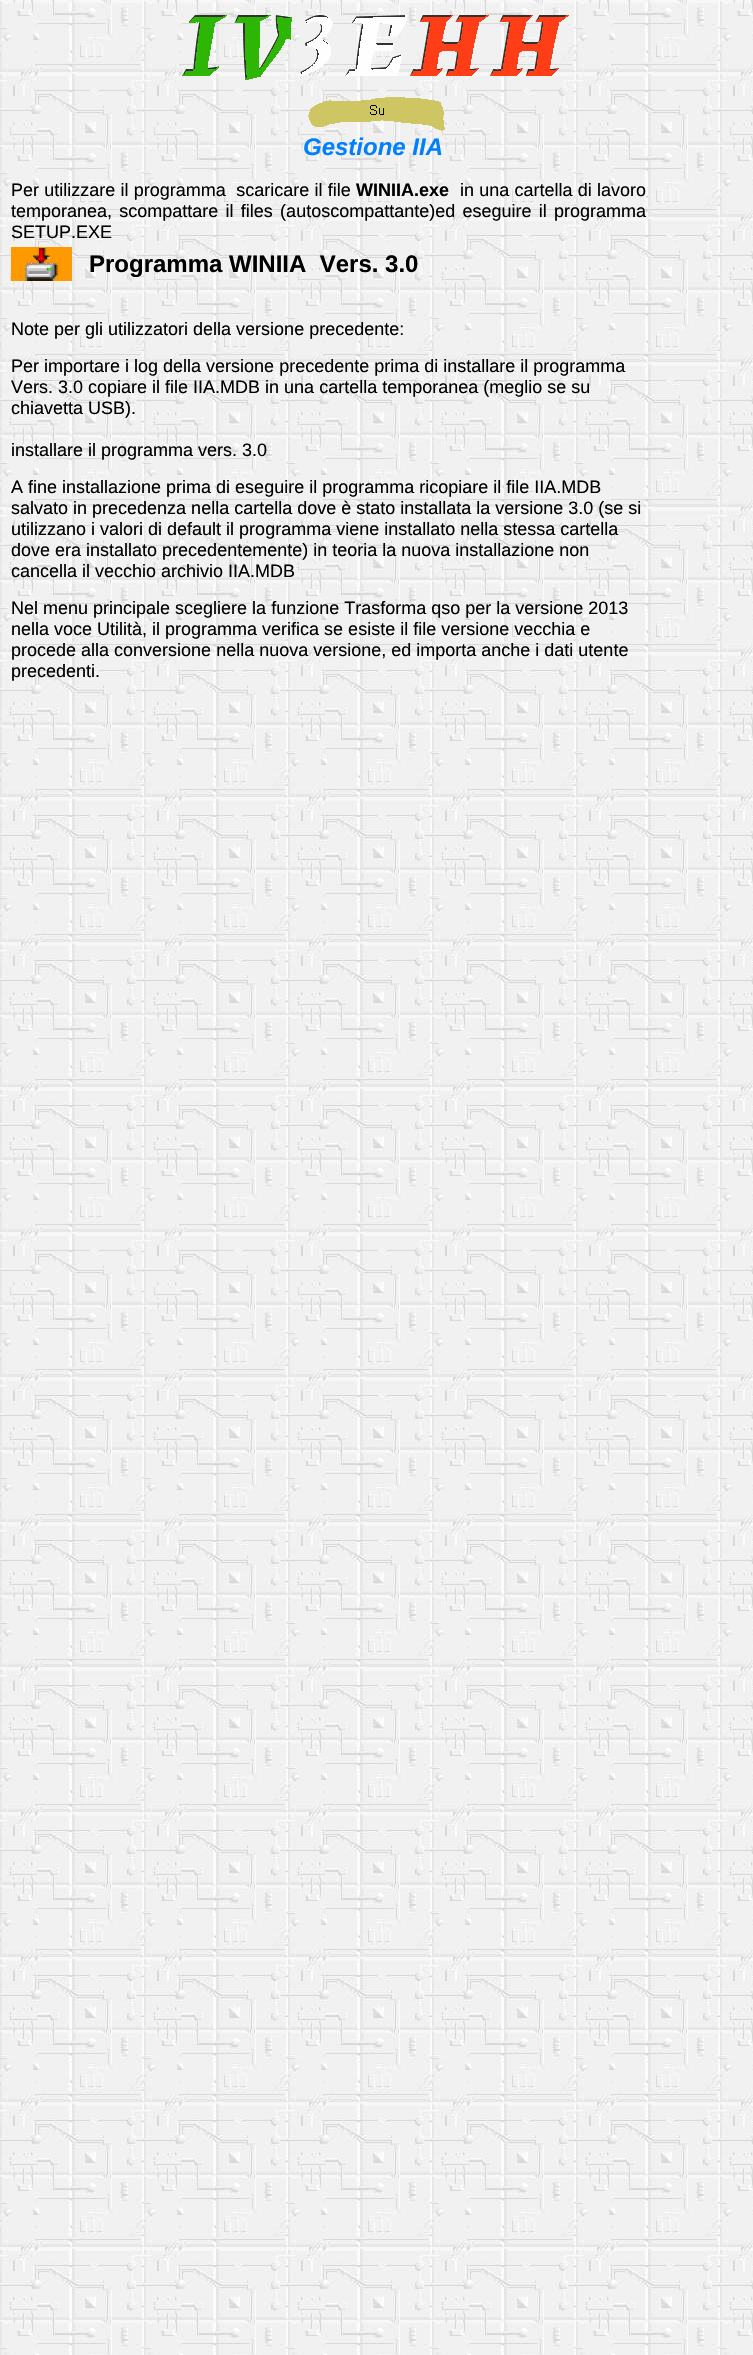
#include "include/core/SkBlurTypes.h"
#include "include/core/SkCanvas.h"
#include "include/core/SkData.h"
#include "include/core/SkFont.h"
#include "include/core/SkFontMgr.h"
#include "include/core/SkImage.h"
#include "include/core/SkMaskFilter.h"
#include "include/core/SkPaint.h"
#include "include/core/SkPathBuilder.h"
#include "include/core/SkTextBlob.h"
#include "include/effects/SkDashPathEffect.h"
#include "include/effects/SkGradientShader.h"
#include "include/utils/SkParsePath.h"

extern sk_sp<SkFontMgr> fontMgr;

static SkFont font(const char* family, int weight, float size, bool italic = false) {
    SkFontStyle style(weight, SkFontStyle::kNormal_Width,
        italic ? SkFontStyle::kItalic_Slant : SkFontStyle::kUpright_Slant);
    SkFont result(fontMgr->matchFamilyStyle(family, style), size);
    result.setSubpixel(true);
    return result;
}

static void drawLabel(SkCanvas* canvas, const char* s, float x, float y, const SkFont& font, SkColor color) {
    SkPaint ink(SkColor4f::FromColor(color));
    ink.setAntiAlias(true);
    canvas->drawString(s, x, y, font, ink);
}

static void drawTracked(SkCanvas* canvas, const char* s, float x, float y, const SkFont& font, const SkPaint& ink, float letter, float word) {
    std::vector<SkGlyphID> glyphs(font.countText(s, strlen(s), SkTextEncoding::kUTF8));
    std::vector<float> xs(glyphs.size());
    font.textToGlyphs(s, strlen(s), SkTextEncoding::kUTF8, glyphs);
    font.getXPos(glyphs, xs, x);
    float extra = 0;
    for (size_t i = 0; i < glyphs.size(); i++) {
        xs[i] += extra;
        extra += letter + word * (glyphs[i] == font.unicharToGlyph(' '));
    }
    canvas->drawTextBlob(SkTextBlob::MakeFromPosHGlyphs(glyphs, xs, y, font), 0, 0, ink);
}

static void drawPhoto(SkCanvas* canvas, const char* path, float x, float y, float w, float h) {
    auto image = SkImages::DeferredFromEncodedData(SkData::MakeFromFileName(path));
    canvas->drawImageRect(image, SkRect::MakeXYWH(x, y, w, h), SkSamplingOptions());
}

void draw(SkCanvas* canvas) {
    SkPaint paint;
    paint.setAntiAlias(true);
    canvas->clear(0xFFFFFFFF);
    drawPhoto(canvas, "assets/img1.png", 0, 0, 753, 2355);
    drawPhoto(canvas, "assets/img2.png", 182, 15, 387, 65);
    drawPhoto(canvas, "assets/img3.png", 308, 97, 137, 34);
    SkFont font1 = font("Liberation Sans", 700, 24, true);
    drawLabel(canvas, "Gestione IIA", 303, 155, font1, 0xFF0080FF);
    SkFont font2 = font("Liberation Sans", 400, 18);
    paint.setColor(0xFF000000);
    drawTracked(canvas, "Per utilizzare il programma  scaricare il file", 11, 196, font2, paint, 0, 0.25f);
    SkFont font3 = font("Liberation Sans", 700, 18);
    drawLabel(canvas, "WINIIA.exe", 356, 196, font3, 0xFF000000);
    drawTracked(canvas, "in una cartella di lavoro", 460, 196, font2, paint, 0, 0.25f);
    drawTracked(canvas, "temporanea, scompattare il files (autoscompattante)ed eseguire il programma", 11, 217, font2, paint, 0, 2.25f);
    drawLabel(canvas, "SETUP.EXE", 11, 238, font2, 0xFF000000);
    drawPhoto(canvas, "assets/img4.png", 11, 247, 61, 34);
    SkFont font4 = font("Liberation Sans", 700, 24);
    drawLabel(canvas, "Programma WINIIA  Vers. 3.0", 89, 272, font4, 0xFF000000);
    drawLabel(canvas, "Note per gli utilizzatori della versione precedente:", 11, 335, font2, 0xFF000000);
    drawLabel(canvas, "Per importare i log della versione precedente prima di installare il programma", 11, 372, font2, 0xFF000000);
    drawLabel(canvas, "Vers. 3.0 copiare il file IIA.MDB in una cartella temporanea (meglio se su", 11, 393, font2, 0xFF000000);
    drawLabel(canvas, "chiavetta USB).", 11, 414, font2, 0xFF000000);
    drawLabel(canvas, "installare il programma vers. 3.0", 11, 456, font2, 0xFF000000);
    drawLabel(canvas, "A fine installazione prima di eseguire il programma ricopiare il file IIA.MDB", 11, 493, font2, 0xFF000000);
    drawLabel(canvas, "salvato in precedenza nella cartella dove è stato installata la versione 3.0 (se si", 11, 514, font2, 0xFF000000);
    drawLabel(canvas, "utilizzano i valori di default il programma viene installato nella stessa cartella", 11, 535, font2, 0xFF000000);
    drawLabel(canvas, "dove era installato precedentemente) in teoria la nuova installazione non", 11, 556, font2, 0xFF000000);
    drawLabel(canvas, "cancella il vecchio archivio IIA.MDB", 11, 577, font2, 0xFF000000);
    drawLabel(canvas, "Nel menu principale scegliere la funzione Trasforma qso per la versione 2013", 11, 614, font2, 0xFF000000);
    drawLabel(canvas, "nella voce Utilità, il programma verifica se esiste il file versione vecchia e", 11, 635, font2, 0xFF000000);
    drawLabel(canvas, "procede alla conversione nella nuova versione, ed importa anche i dati utente", 11, 656, font2, 0xFF000000);
    drawLabel(canvas, "precedenti.", 11, 677, font2, 0xFF000000);
}
